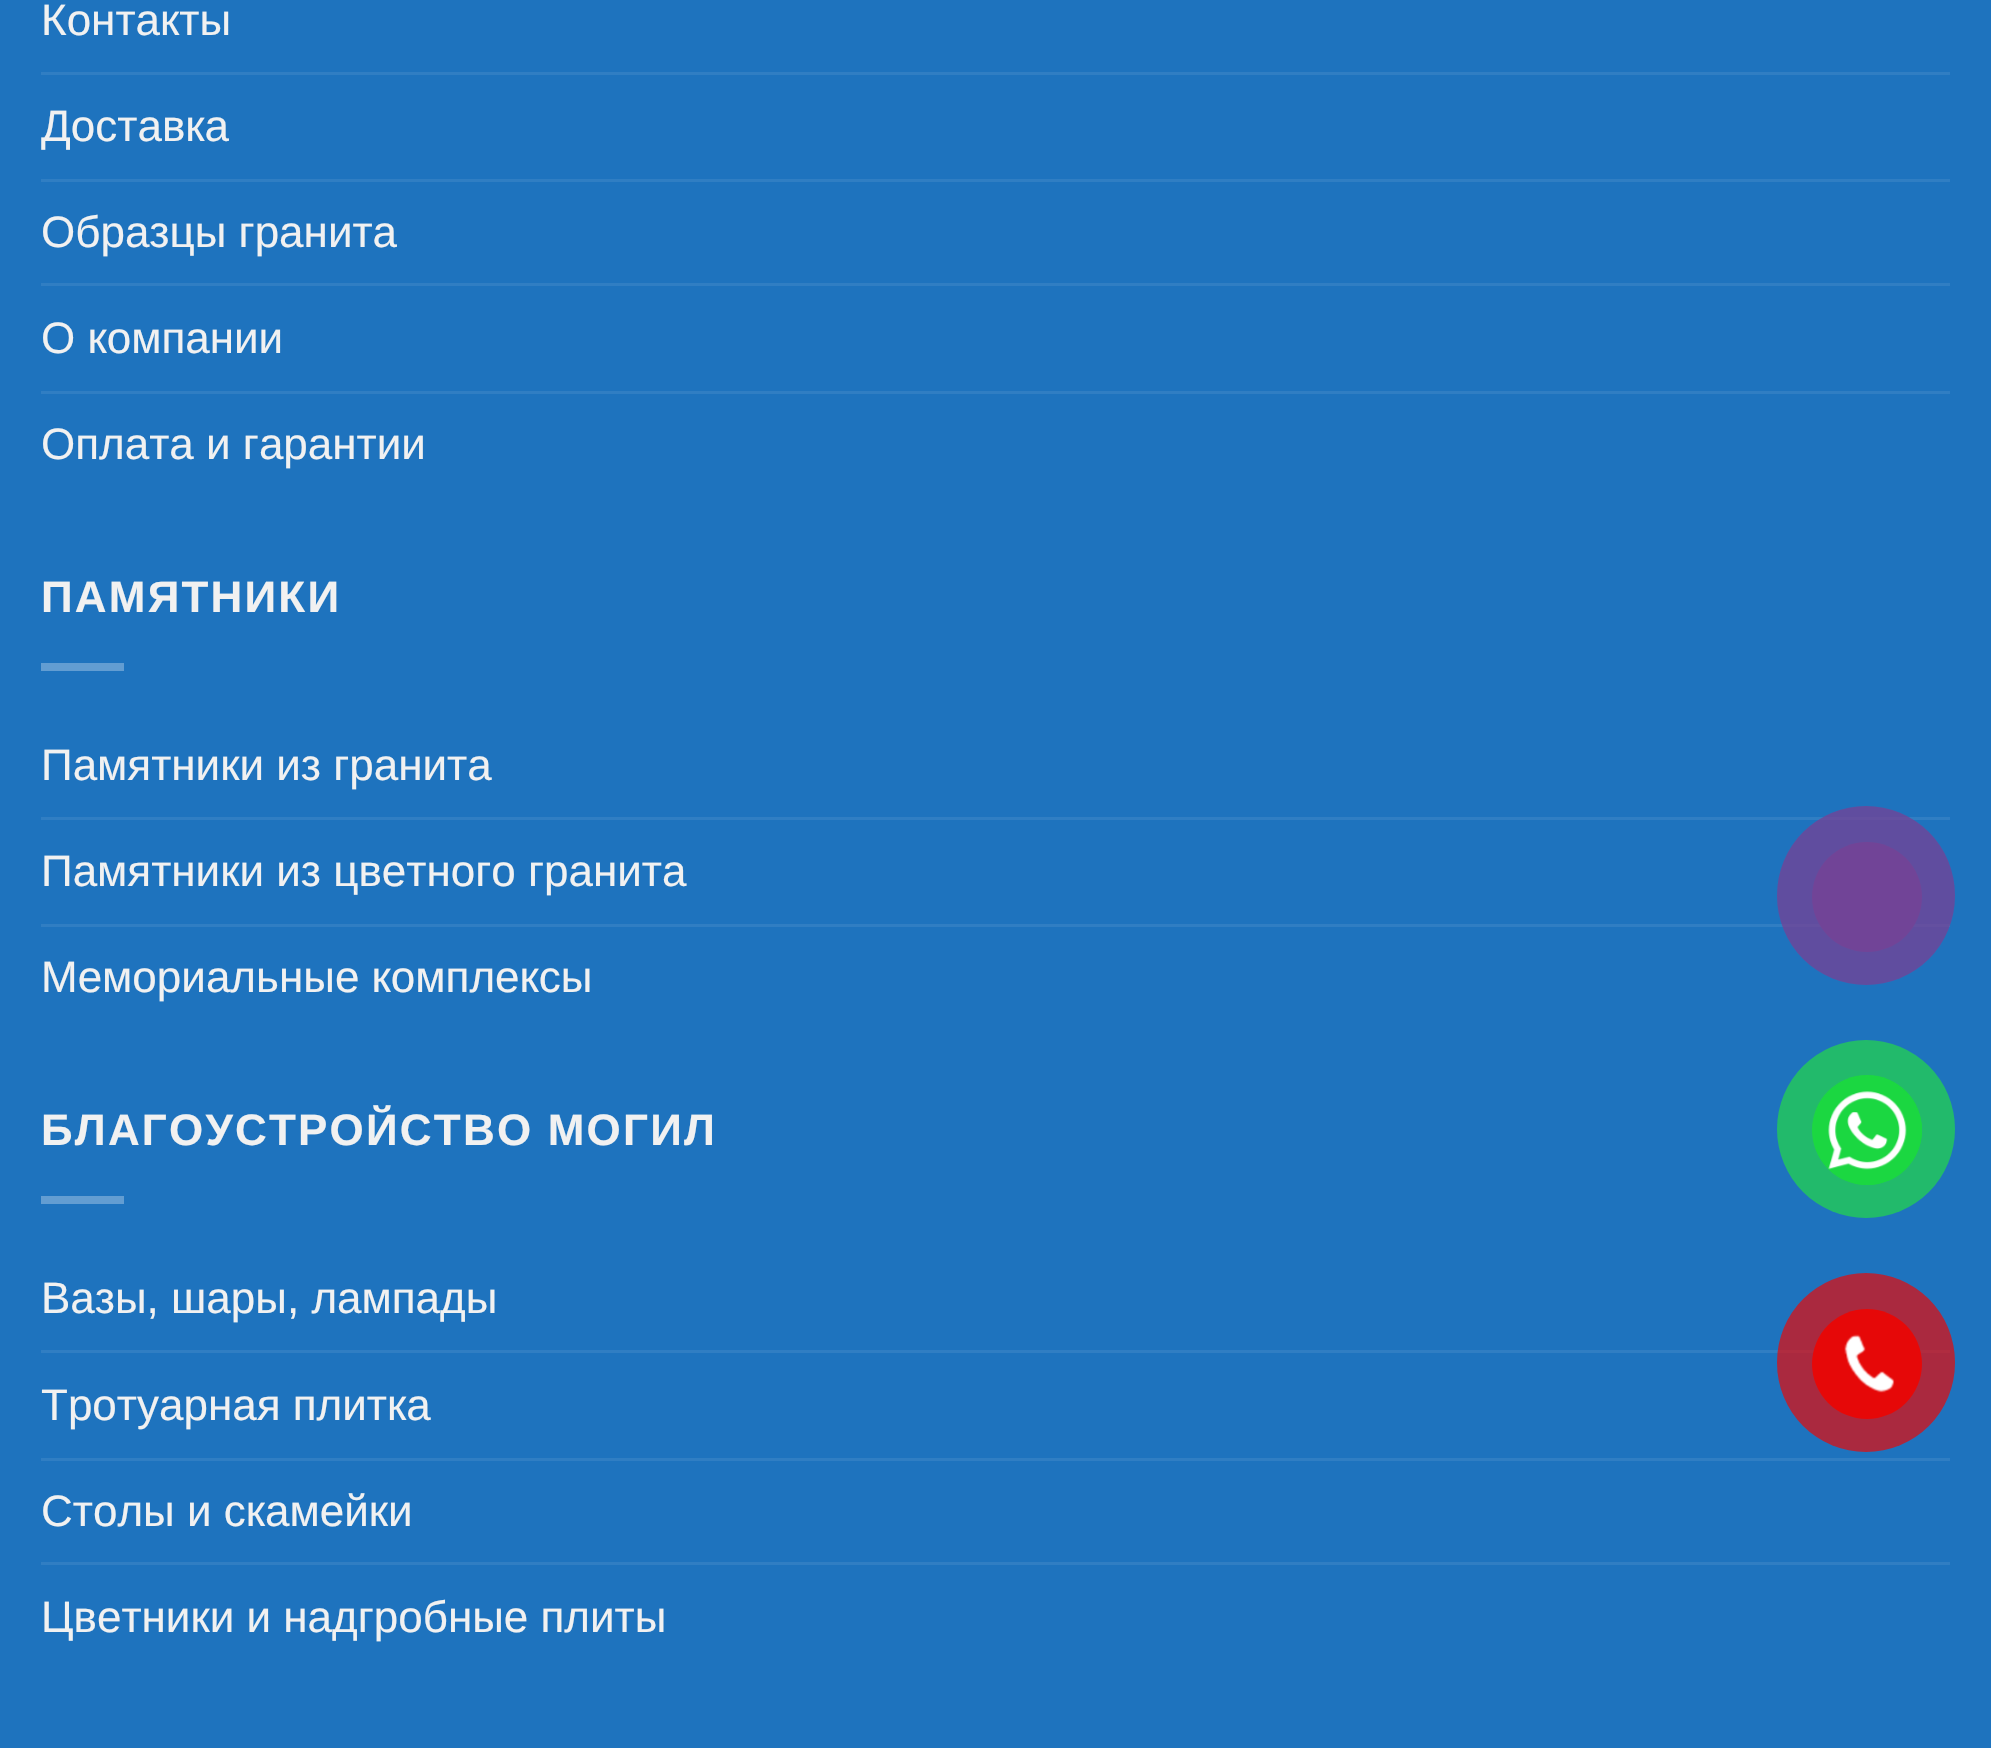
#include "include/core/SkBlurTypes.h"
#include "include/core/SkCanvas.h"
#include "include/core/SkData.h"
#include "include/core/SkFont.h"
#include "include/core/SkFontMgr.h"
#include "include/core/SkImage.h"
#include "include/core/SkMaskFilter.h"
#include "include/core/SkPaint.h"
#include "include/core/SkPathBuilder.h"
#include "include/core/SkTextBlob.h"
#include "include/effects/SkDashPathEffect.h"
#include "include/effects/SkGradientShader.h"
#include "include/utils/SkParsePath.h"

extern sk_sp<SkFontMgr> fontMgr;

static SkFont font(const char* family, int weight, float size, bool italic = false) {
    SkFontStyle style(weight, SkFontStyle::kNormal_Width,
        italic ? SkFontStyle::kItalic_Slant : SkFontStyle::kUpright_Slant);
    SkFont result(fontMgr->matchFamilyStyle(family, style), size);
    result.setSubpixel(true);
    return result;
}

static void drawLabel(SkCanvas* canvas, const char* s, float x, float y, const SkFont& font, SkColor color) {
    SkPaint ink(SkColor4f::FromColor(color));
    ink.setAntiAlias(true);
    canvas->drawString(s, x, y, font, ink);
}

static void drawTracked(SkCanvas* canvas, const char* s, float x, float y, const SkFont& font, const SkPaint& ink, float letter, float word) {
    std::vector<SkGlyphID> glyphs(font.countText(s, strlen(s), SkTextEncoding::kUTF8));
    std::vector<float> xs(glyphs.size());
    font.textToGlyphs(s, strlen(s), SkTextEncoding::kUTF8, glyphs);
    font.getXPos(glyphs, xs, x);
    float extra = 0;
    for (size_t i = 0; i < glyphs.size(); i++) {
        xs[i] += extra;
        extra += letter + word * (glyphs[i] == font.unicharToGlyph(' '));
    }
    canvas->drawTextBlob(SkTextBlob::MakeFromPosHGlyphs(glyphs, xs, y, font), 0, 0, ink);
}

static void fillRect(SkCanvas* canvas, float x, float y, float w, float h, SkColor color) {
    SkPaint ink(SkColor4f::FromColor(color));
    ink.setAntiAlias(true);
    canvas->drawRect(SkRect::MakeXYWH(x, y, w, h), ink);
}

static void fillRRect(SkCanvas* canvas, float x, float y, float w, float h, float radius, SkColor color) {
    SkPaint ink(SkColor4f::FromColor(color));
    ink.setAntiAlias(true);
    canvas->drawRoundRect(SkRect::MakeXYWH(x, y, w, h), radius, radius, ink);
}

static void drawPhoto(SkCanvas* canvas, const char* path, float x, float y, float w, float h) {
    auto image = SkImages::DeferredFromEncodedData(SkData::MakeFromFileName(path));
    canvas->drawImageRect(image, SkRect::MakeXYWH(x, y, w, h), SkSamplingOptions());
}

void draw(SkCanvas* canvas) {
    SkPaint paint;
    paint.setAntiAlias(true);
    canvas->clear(0xFF1E73BE);
    SkFont font1 = font("Liberation Sans", 400, 44);
    drawLabel(canvas, "Контакты", 41, 35, font1, 0xFFF1F1F1);
    fillRect(canvas, 41, 72, 1909, 3, 0xFF307EC3);
    drawLabel(canvas, "Доставка", 41, 141, font1, 0xFFF1F1F1);
    fillRect(canvas, 41, 179, 1909, 3, 0xFF307EC3);
    drawLabel(canvas, "Образцы гранита", 41, 247, font1, 0xFFF1F1F1);
    fillRect(canvas, 41, 283, 1909, 3, 0xFF307EC3);
    drawLabel(canvas, "О компании", 41, 353, font1, 0xFFF1F1F1);
    fillRect(canvas, 41, 391, 1909, 3, 0xFF307EC3);
    drawLabel(canvas, "Оплата и гарантии", 41, 459, font1, 0xFFF1F1F1);
    SkFont font2 = font("Liberation Sans", 700, 44);
    paint.setColor(0xFFF1F1F1);
    drawTracked(canvas, "ПАМЯТНИКИ", 41, 612, font2, paint, 2.2f, 0);
    fillRect(canvas, 41, 663, 83, 8, 0xFF629DD2);
    drawLabel(canvas, "Памятники из гранита", 41, 780, font1, 0xFFF1F1F1);
    fillRect(canvas, 41, 817, 1909, 3, 0xFF307EC3);
    drawLabel(canvas, "Памятники из цветного гранита", 41, 886, font1, 0xFFF1F1F1);
    fillRect(canvas, 41, 924, 1909, 3, 0xFF307EC3);
    drawLabel(canvas, "Мемориальные комплексы", 41, 992, font1, 0xFFF1F1F1);
    drawTracked(canvas, "БЛАГОУСТРОЙСТВО МОГИЛ", 41, 1145, font2, paint, 2.2f, 0);
    fillRect(canvas, 41, 1196, 83, 8, 0xFF629DD2);
    drawLabel(canvas, "Вазы, шары, лампады", 41, 1313, font1, 0xFFF1F1F1);
    fillRect(canvas, 41, 1350, 1909, 3, 0xFF307EC3);
    drawLabel(canvas, "Тротуарная плитка", 41, 1420, font1, 0xFFF1F1F1);
    fillRect(canvas, 41, 1458, 1909, 3, 0xFF307EC3);
    drawLabel(canvas, "Столы и скамейки", 41, 1526, font1, 0xFFF1F1F1);
    fillRect(canvas, 41, 1562, 1909, 3, 0xFF307EC3);
    drawLabel(canvas, "Цветники и надгробные плиты", 41, 1632, font1, 0xFFF1F1F1);
    fillRRect(canvas, 1777, 806, 178, 179, 89, 0xCC714497);
    paint.setColor(0xFF714497);
    canvas->drawCircle(1867, 897, 55, paint);
    paint.setColor(0xFF22BA6B);
    canvas->drawCircle(1866, 1129, 89, paint);
    paint.setColor(0xFF1CD741);
    canvas->drawCircle(1867, 1130, 55, paint);
    drawPhoto(canvas, "assets/img1.png", 1815, 1075, 107, 110);
    fillRRect(canvas, 1777, 1273, 178, 179, 89, 0xB3E60808);
    paint.setColor(0xFFE60808);
    canvas->drawCircle(1867, 1364, 55, paint);
    drawPhoto(canvas, "assets/img2.png", 1844, 1334, 51, 59);
}
